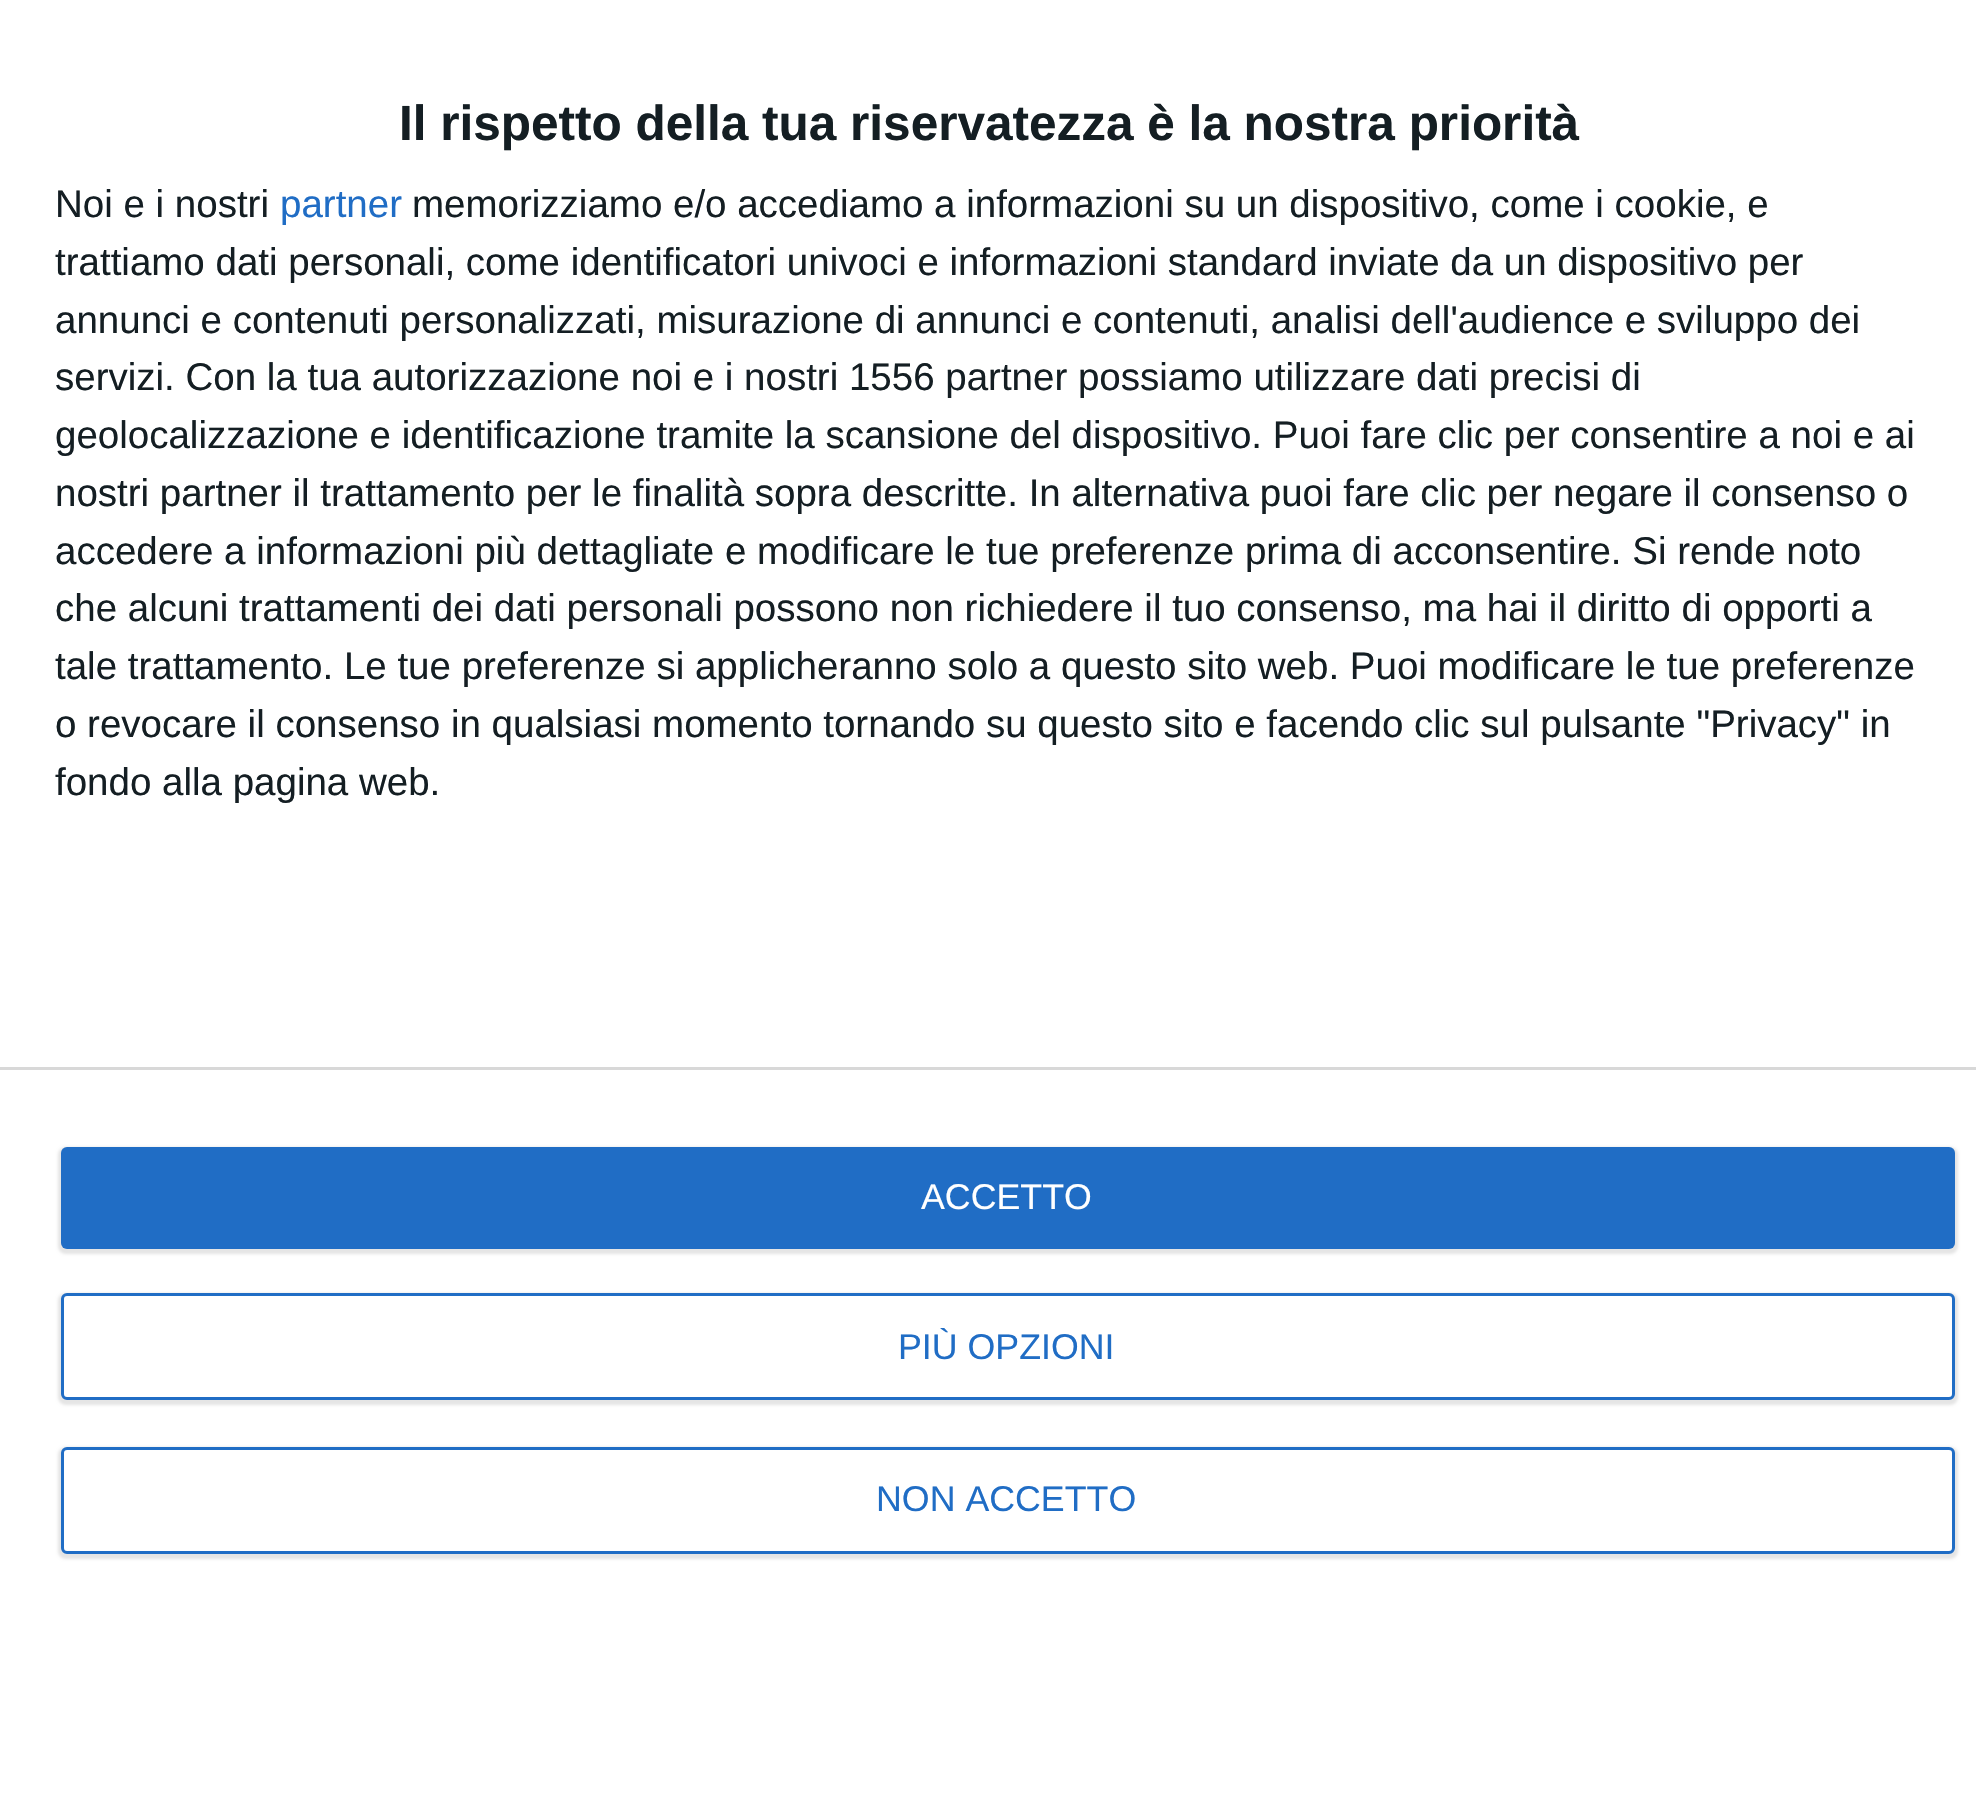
#include "include/core/SkBlurTypes.h"
#include "include/core/SkCanvas.h"
#include "include/core/SkData.h"
#include "include/core/SkFont.h"
#include "include/core/SkFontMgr.h"
#include "include/core/SkImage.h"
#include "include/core/SkMaskFilter.h"
#include "include/core/SkPaint.h"
#include "include/core/SkPathBuilder.h"
#include "include/core/SkTextBlob.h"
#include "include/effects/SkDashPathEffect.h"
#include "include/effects/SkGradientShader.h"
#include "include/utils/SkParsePath.h"

extern sk_sp<SkFontMgr> fontMgr;

static SkFont font(const char* family, int weight, float size, bool italic = false) {
    SkFontStyle style(weight, SkFontStyle::kNormal_Width,
        italic ? SkFontStyle::kItalic_Slant : SkFontStyle::kUpright_Slant);
    SkFont result(fontMgr->matchFamilyStyle(family, style), size);
    result.setSubpixel(true);
    return result;
}

static void drawLabel(SkCanvas* canvas, const char* s, float x, float y, const SkFont& font, SkColor color) {
    SkPaint ink(SkColor4f::FromColor(color));
    ink.setAntiAlias(true);
    canvas->drawString(s, x, y, font, ink);
}

static void fillRect(SkCanvas* canvas, float x, float y, float w, float h, SkColor color) {
    SkPaint ink(SkColor4f::FromColor(color));
    ink.setAntiAlias(true);
    canvas->drawRect(SkRect::MakeXYWH(x, y, w, h), ink);
}

static void fillRRect(SkCanvas* canvas, float x, float y, float w, float h, float radius, SkColor color) {
    SkPaint ink(SkColor4f::FromColor(color));
    ink.setAntiAlias(true);
    canvas->drawRoundRect(SkRect::MakeXYWH(x, y, w, h), radius, radius, ink);
}

void draw(SkCanvas* canvas) {
    SkPaint paint;
    paint.setAntiAlias(true);
    canvas->clear(0xFFFFFFFF);
    SkFont font1 = font("Liberation Sans", 700, 49.5f);
    drawLabel(canvas, "Il rispetto della tua riservatezza è la nostra priorità", 399, 140, font1, 0xFF141E23);
    SkFont font2 = font("Liberation Sans", 400, 38.5f);
    drawLabel(canvas, "Noi e i nostri", 55, 217, font2, 0xFF141E23);
    drawLabel(canvas, "partner", 280, 217, font2, 0xFF206DC5);
    drawLabel(canvas, "memorizziamo e/o accediamo a informazioni su un dispositivo, come i cookie, e", 412, 217, font2, 0xFF141E23);
    drawLabel(canvas, "trattiamo dati personali, come identificatori univoci e informazioni standard inviate da un dispositivo per", 55, 275, font2, 0xFF141E23);
    drawLabel(canvas, "annunci e contenuti personalizzati, misurazione di annunci e contenuti, analisi dell'audience e sviluppo dei", 55, 333, font2, 0xFF141E23);
    drawLabel(canvas, "servizi. Con la tua autorizzazione noi e i nostri 1556 partner possiamo utilizzare dati precisi di", 55, 390, font2, 0xFF141E23);
    drawLabel(canvas, "geolocalizzazione e identificazione tramite la scansione del dispositivo. Puoi fare clic per consentire a noi e ai", 55, 448, font2, 0xFF141E23);
    drawLabel(canvas, "nostri partner il trattamento per le finalità sopra descritte. In alternativa puoi fare clic per negare il consenso o", 55, 506, font2, 0xFF141E23);
    drawLabel(canvas, "accedere a informazioni più dettagliate e modificare le tue preferenze prima di acconsentire. Si rende noto", 55, 564, font2, 0xFF141E23);
    drawLabel(canvas, "che alcuni trattamenti dei dati personali possono non richiedere il tuo consenso, ma hai il diritto di opporti a", 55, 621, font2, 0xFF141E23);
    drawLabel(canvas, "tale trattamento. Le tue preferenze si applicheranno solo a questo sito web. Puoi modificare le tue preferenze", 55, 679, font2, 0xFF141E23);
    drawLabel(canvas, "o revocare il consenso in qualsiasi momento tornando su questo sito e facendo clic sul pulsante \"Privacy\" in", 55, 737, font2, 0xFF141E23);
    drawLabel(canvas, "fondo alla pagina web.", 55, 795, font2, 0xFF141E23);
    fillRect(canvas, 0, 1067, 1976, 3, 0xFFD8D8D8);
    paint.setColor(0x1A000000);
    paint.setMaskFilter(SkMaskFilter::MakeBlur(kNormal_SkBlurStyle, 1.5f));
    canvas->drawRoundRect(SkRect::MakeXYWH(58, 1147, 1900, 107), 8, 8, paint);
    paint.setMaskFilter(nullptr);
    fillRRect(canvas, 61, 1147, 1894, 102, 6, 0xFF206DC5);
    SkFont font3 = font("Liberation Sans", 400, 35.75f);
    drawLabel(canvas, "ACCETTO", 921, 1209, font3, 0xFFFFFFFF);
    paint.setMaskFilter(SkMaskFilter::MakeBlur(kNormal_SkBlurStyle, 1.5f));
    canvas->drawRoundRect(SkRect::MakeXYWH(58, 1293, 1900, 112), 8, 8, paint);
    paint.setMaskFilter(nullptr);
    paint.setColor(0xFFFFFFFF);
    canvas->drawRoundRect(SkRect::MakeXYWH(62.5f, 1294.5f, 1891, 104), 4.5f, 4.5f, paint);
    paint.setStroke(true);
    paint.setStrokeWidth(3);
    paint.setColor(0xFF206DC5);
    canvas->drawRoundRect(SkRect::MakeXYWH(62.5f, 1294.5f, 1891, 104), 4.5f, 4.5f, paint);
    drawLabel(canvas, "PIÙ OPZIONI", 898, 1359, font3, 0xFF206DC5);
    paint.setStroke(false);
    paint.setColor(0x1A000000);
    paint.setMaskFilter(SkMaskFilter::MakeBlur(kNormal_SkBlurStyle, 1.5f));
    canvas->drawRoundRect(SkRect::MakeXYWH(58, 1447, 1900, 112), 8, 8, paint);
    paint.setMaskFilter(nullptr);
    paint.setColor(0xFFFFFFFF);
    canvas->drawRoundRect(SkRect::MakeXYWH(62.5f, 1448.5f, 1891, 104), 4.5f, 4.5f, paint);
    paint.setStroke(true);
    paint.setColor(0xFF206DC5);
    canvas->drawRoundRect(SkRect::MakeXYWH(62.5f, 1448.5f, 1891, 104), 4.5f, 4.5f, paint);
    drawLabel(canvas, "NON ACCETTO", 876, 1511, font3, 0xFF206DC5);
}
